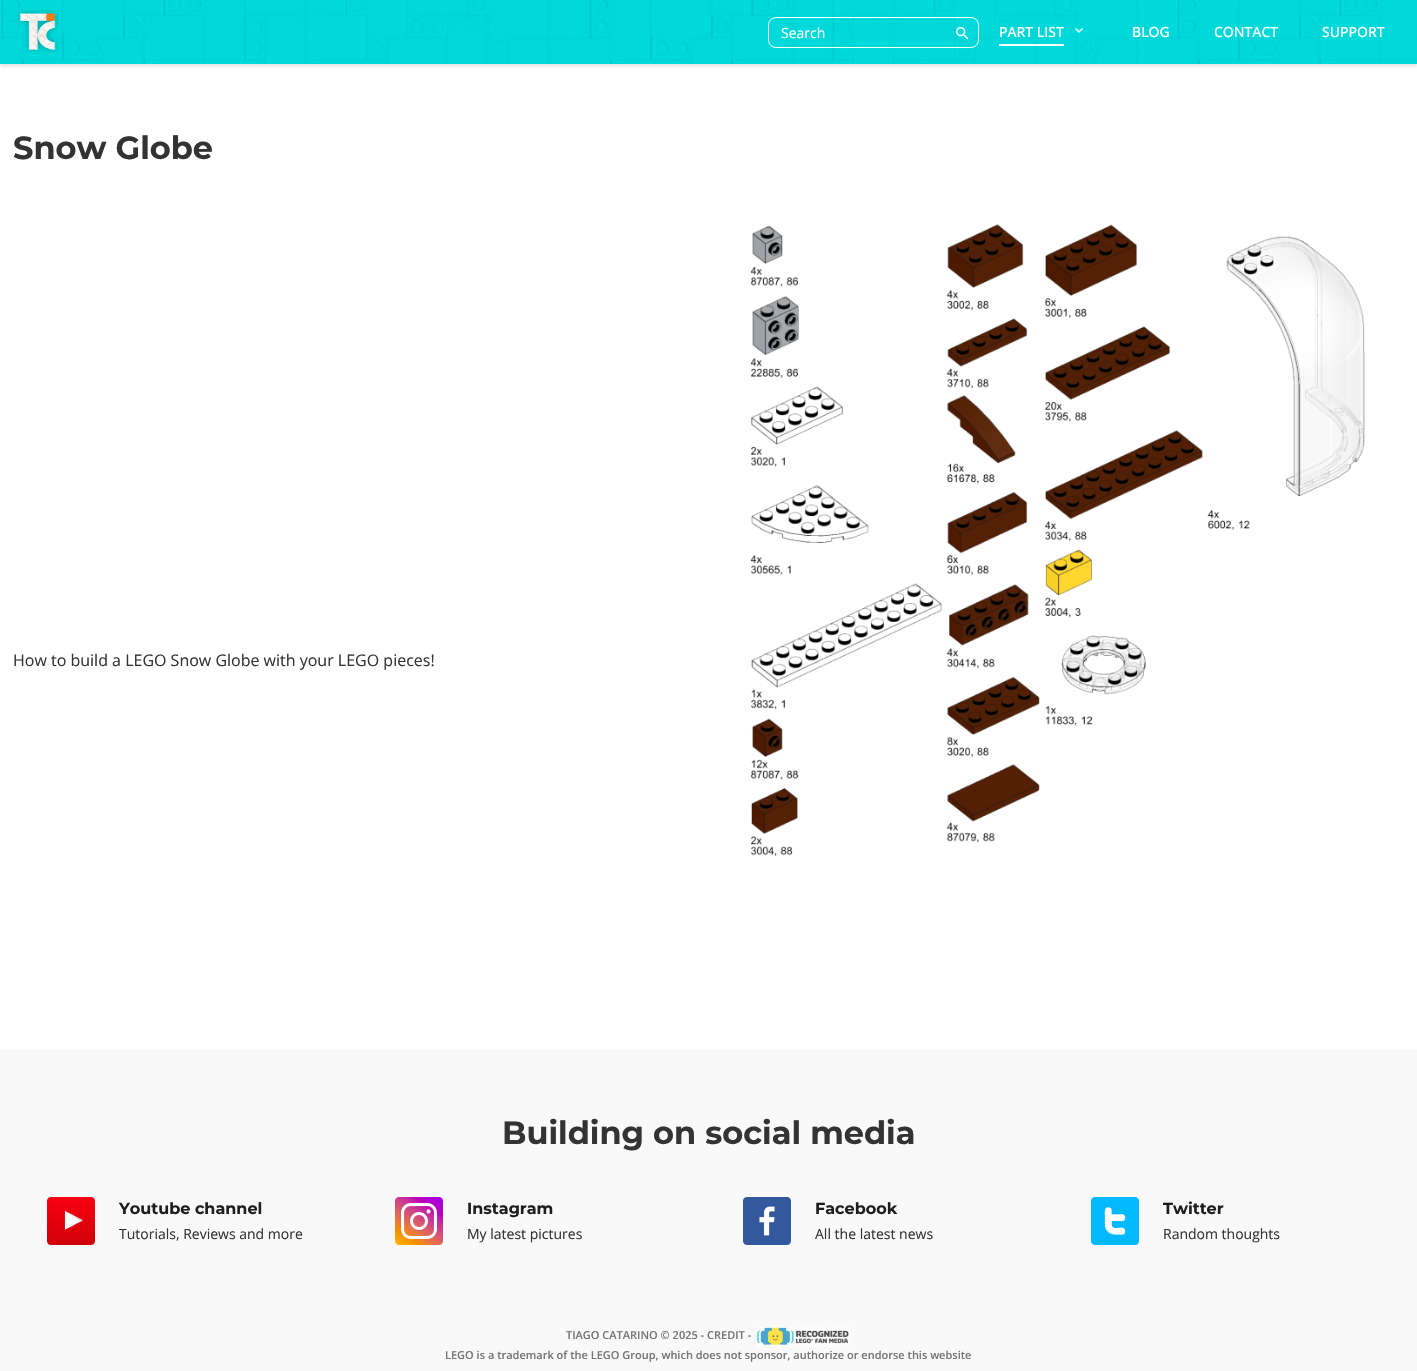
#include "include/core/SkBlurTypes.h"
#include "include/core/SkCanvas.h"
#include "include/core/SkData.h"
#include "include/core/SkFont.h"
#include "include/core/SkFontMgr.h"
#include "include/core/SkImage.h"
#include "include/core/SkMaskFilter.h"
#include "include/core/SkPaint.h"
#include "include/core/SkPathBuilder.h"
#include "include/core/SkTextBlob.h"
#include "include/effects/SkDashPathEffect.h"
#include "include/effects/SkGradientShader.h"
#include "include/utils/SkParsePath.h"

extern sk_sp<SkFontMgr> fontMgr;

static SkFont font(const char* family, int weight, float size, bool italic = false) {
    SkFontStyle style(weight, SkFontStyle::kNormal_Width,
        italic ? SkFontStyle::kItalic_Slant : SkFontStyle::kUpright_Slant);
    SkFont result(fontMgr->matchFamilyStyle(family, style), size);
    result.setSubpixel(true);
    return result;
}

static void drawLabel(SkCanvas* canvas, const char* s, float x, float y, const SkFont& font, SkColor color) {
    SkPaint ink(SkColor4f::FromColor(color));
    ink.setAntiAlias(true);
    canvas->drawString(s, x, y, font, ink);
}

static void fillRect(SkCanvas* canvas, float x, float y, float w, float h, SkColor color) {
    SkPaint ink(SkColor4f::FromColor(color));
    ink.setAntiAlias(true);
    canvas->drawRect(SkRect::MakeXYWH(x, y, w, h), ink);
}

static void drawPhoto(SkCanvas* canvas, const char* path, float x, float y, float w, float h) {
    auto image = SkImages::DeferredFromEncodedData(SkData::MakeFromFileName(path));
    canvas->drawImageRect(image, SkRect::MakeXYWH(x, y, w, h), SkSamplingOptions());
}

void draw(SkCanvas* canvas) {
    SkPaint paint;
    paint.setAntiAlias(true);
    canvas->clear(0xFFFFFFFF);
    paint.setColor(0x1F000000);
    paint.setMaskFilter(SkMaskFilter::MakeBlur(kNormal_SkBlurStyle, 2));
    canvas->drawRect(SkRect::MakeXYWH(0, 2, 1417, 64), paint);
    paint.setMaskFilter(nullptr);
    drawPhoto(canvas, "assets/img1.png", 0, 0, 1417, 64);
    drawPhoto(canvas, "assets/img2.png", 16, 9, 43, 44);
    paint.setStroke(true);
    paint.setStrokeWidth(1);
    paint.setColor(0xFFFFFFFF);
    canvas->drawRoundRect(SkRect::MakeXYWH(768.5f, 17.5f, 210, 30), 7.5f, 7.5f, paint);
    SkFont font1 = font("Open Sans", 400, 14);
    drawLabel(canvas, "Search", 781, 38, font1, 0xFFFFFFFF);
    drawPhoto(canvas, "assets/img3.png", 956, 27, 13, 13);
    SkFont font2 = font("Open Sans", 500, 14);
    drawLabel(canvas, "PART LIST", 999, 37, font2, 0xFFFFFFFF);
    drawPhoto(canvas, "assets/img4.png", 1075, 28, 8, 5);
    fillRect(canvas, 999, 44, 65, 2, 0xFFFFFFFF);
    drawLabel(canvas, "BLOG", 1132, 37, font2, 0xFFFFFFFF);
    drawLabel(canvas, "CONTACT", 1214, 37, font2, 0xFFFFFFFF);
    drawLabel(canvas, "SUPPORT", 1322, 37, font2, 0xFFFFFFFF);
    SkFont font3 = font("Montserrat", 700, 32);
    drawLabel(canvas, "Snow Globe", 13, 159, font3, 0xFF333333);
    SkFont font4 = font("Open Sans", 400, 16);
    drawLabel(canvas, "How to build a LEGO Snow Globe with your LEGO pieces!", 13, 666, font4, 0xFF333333);
    drawPhoto(canvas, "assets/img5.png", 750, 224, 615, 632);
    fillRect(canvas, 0, 1049, 1417, 322, 0xFFF9F9F9);
    drawLabel(canvas, "Building on social media", 502, 1144, font3, 0xFF333333);
    drawPhoto(canvas, "assets/img6.png", 47, 1197, 48, 48);
    SkFont font5 = font("Montserrat", 700, 16);
    drawLabel(canvas, "Youtube channel", 119, 1214, font5, 0xFF1E1E1E);
    drawLabel(canvas, "Tutorials, Reviews and more", 119, 1239, font1, 0xFF333333);
    drawPhoto(canvas, "assets/img7.png", 395, 1197, 48, 48);
    drawLabel(canvas, "Instagram", 467, 1214, font5, 0xFF1E1E1E);
    drawLabel(canvas, "My latest pictures", 467, 1239, font1, 0xFF333333);
    drawPhoto(canvas, "assets/img8.png", 743, 1197, 48, 48);
    drawLabel(canvas, "Facebook", 815, 1214, font5, 0xFF1E1E1E);
    drawLabel(canvas, "All the latest news", 815, 1239, font1, 0xFF333333);
    drawPhoto(canvas, "assets/img9.png", 1091, 1197, 48, 48);
    drawLabel(canvas, "Twitter", 1163, 1214, font5, 0xFF1E1E1E);
    drawLabel(canvas, "Random thoughts", 1163, 1239, font1, 0xFF333333);
    SkFont font6 = font("Open Sans", 600, 11);
    drawLabel(canvas, "TIAGO CATARINO © 2025 - CREDIT -", 566, 1339, font6, 0xFF757575);
    drawPhoto(canvas, "assets/img10.png", 756, 1327, 94, 20);
    drawLabel(canvas, "LEGO is a trademark of the LEGO Group, which does not sponsor, authorize or endorse this website", 445, 1359, font6, 0xFF757575);
}
